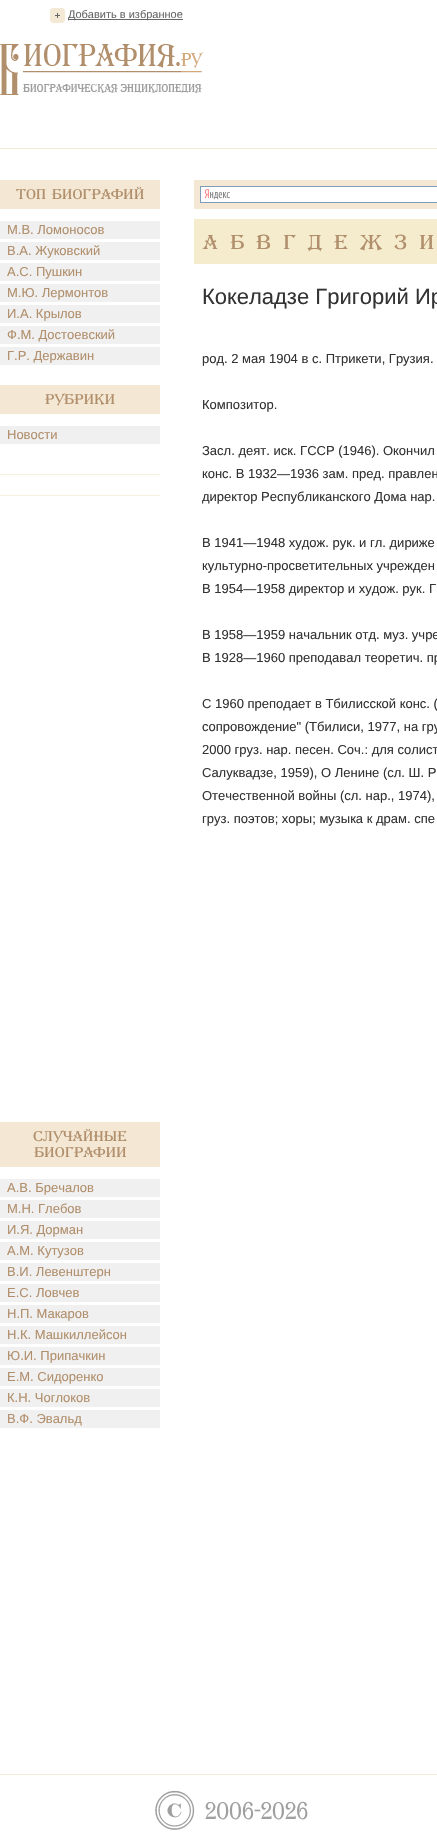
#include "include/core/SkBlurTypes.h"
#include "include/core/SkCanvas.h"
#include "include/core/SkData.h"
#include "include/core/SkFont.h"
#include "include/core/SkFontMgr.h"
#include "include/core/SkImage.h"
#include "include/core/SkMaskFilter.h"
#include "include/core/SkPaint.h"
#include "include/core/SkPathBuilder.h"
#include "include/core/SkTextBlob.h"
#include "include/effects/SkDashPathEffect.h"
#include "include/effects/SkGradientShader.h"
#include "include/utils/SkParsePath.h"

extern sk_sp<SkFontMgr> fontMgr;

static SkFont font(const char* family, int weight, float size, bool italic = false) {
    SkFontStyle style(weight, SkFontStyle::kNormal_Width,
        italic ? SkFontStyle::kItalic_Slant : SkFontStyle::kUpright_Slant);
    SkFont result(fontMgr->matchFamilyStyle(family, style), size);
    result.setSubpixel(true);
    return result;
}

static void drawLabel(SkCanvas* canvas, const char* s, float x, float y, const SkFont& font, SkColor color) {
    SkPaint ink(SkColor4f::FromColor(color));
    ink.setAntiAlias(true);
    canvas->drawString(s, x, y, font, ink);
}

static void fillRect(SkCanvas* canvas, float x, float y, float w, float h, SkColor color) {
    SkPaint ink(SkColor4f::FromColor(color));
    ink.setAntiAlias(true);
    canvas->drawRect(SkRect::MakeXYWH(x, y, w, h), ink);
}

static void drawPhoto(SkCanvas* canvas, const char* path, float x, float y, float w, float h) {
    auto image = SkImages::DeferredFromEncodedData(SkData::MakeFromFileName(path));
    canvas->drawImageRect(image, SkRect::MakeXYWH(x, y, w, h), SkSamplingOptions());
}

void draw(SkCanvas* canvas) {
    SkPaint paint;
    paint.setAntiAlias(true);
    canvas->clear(0xFFFFFFFF);
    fillRect(canvas, 0, 148, 437, 1, 0xFFF4E9D5);
    drawPhoto(canvas, "assets/img1.png", 50, 8, 15, 15);
    fillRect(canvas, 68, 19, 115, 1, 0xFF666666);
    SkFont font1 = font("Liberation Sans", 400, 11);
    drawLabel(canvas, "Добавить в избранное", 68, 18, font1, 0xFF666666);
    drawPhoto(canvas, "assets/img2.png", 0, 44, 204, 51);
    fillRect(canvas, 0, 180, 160, 29, 0xFFF4E8D4);
    SkFont font2 = font("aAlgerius", 400, 14);
    drawLabel(canvas, "Топ Биографий", 16, 199, font2, 0xFFB18F6C);
    fillRect(canvas, 0, 221, 160, 18, 0xFFF0F0F0);
    SkFont font3 = font("Liberation Sans", 400, 13);
    drawLabel(canvas, "М.В. Ломоносов", 7, 234, font3, 0xFFB18F6C);
    fillRect(canvas, 0, 242, 160, 18, 0xFFF0F0F0);
    drawLabel(canvas, "В.А. Жуковский", 7, 255, font3, 0xFFB18F6C);
    fillRect(canvas, 0, 263, 160, 18, 0xFFF0F0F0);
    drawLabel(canvas, "А.С. Пушкин", 7, 276, font3, 0xFFB18F6C);
    fillRect(canvas, 0, 284, 160, 18, 0xFFF0F0F0);
    drawLabel(canvas, "М.Ю. Лермонтов", 7, 297, font3, 0xFFB18F6C);
    fillRect(canvas, 0, 305, 160, 18, 0xFFF0F0F0);
    drawLabel(canvas, "И.А. Крылов", 7, 318, font3, 0xFFB18F6C);
    fillRect(canvas, 0, 326, 160, 18, 0xFFF0F0F0);
    drawLabel(canvas, "Ф.М. Достоевский", 7, 339, font3, 0xFFB18F6C);
    fillRect(canvas, 0, 347, 160, 18, 0xFFF0F0F0);
    drawLabel(canvas, "Г.Р. Державин", 7, 360, font3, 0xFFB18F6C);
    fillRect(canvas, 0, 385, 160, 29, 0xFFF4E8D4);
    drawLabel(canvas, "Рубрики", 45, 404, font2, 0xFFB18F6C);
    fillRect(canvas, 0, 426, 160, 18, 0xFFF0F0F0);
    drawLabel(canvas, "Новости", 7, 439, font3, 0xFFB18F6C);
    fillRect(canvas, 0, 474, 160, 1, 0xFFF7EEDF);
    fillRect(canvas, 0, 495, 160, 1, 0xFFF7EEDF);
    fillRect(canvas, 0, 1122, 160, 45, 0xFFF4E8D4);
    drawLabel(canvas, "Случайные", 33, 1141, font2, 0xFFB18F6C);
    drawLabel(canvas, "биографии", 34, 1157, font2, 0xFFB18F6C);
    fillRect(canvas, 0, 1179, 160, 18, 0xFFF0F0F0);
    drawLabel(canvas, "А.В. Бречалов", 7, 1192, font3, 0xFFB18F6C);
    fillRect(canvas, 0, 1200, 160, 18, 0xFFF0F0F0);
    drawLabel(canvas, "М.Н. Глебов", 7, 1213, font3, 0xFFB18F6C);
    fillRect(canvas, 0, 1221, 160, 18, 0xFFF0F0F0);
    drawLabel(canvas, "И.Я. Дорман", 7, 1234, font3, 0xFFB18F6C);
    fillRect(canvas, 0, 1242, 160, 18, 0xFFF0F0F0);
    drawLabel(canvas, "А.М. Кутузов", 7, 1255, font3, 0xFFB18F6C);
    fillRect(canvas, 0, 1263, 160, 18, 0xFFF0F0F0);
    drawLabel(canvas, "В.И. Левенштерн", 7, 1276, font3, 0xFFB18F6C);
    fillRect(canvas, 0, 1284, 160, 18, 0xFFF0F0F0);
    drawLabel(canvas, "Е.С. Ловчев", 7, 1297, font3, 0xFFB18F6C);
    fillRect(canvas, 0, 1305, 160, 18, 0xFFF0F0F0);
    drawLabel(canvas, "Н.П. Макаров", 7, 1318, font3, 0xFFB18F6C);
    fillRect(canvas, 0, 1326, 160, 18, 0xFFF0F0F0);
    drawLabel(canvas, "Н.К. Машкиллейсон", 7, 1339, font3, 0xFFB18F6C);
    fillRect(canvas, 0, 1347, 160, 18, 0xFFF0F0F0);
    drawLabel(canvas, "Ю.И. Припачкин", 7, 1360, font3, 0xFFB18F6C);
    fillRect(canvas, 0, 1368, 160, 18, 0xFFF0F0F0);
    drawLabel(canvas, "Е.М. Сидоренко", 7, 1381, font3, 0xFFB18F6C);
    fillRect(canvas, 0, 1389, 160, 18, 0xFFF0F0F0);
    drawLabel(canvas, "К.Н. Чоглоков", 7, 1402, font3, 0xFFB18F6C);
    fillRect(canvas, 0, 1410, 160, 18, 0xFFF0F0F0);
    drawLabel(canvas, "В.Ф. Эвальд", 7, 1423, font3, 0xFFB18F6C);
    fillRect(canvas, 194, 180, 243, 29, 0xFFF4E8D4);
    fillRect(canvas, 201, 187, 236, 15, 0xFFFFFFFF);
    drawPhoto(canvas, "assets/img3.png", 204, 189, 26, 11);
    paint.setStroke(true);
    paint.setStrokeWidth(1);
    paint.setColor(0xFF7F9DB9);
    canvas->drawRect(SkRect::MakeXYWH(200.5f, 186.5f, 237, 16), paint);
    fillRect(canvas, 194, 219, 243, 45, 0xFFF5ECCE);
    SkFont font4 = font("aAlgerius", 400, 20);
    drawLabel(canvas, "А", 203, 249, font4, 0xFFB18F6C);
    drawLabel(canvas, "Б", 230, 249, font4, 0xFFB18F6C);
    drawLabel(canvas, "В", 256, 249, font4, 0xFFB18F6C);
    drawLabel(canvas, "Г", 283, 249, font4, 0xFFB18F6C);
    drawLabel(canvas, "Д", 308, 249, font4, 0xFFB18F6C);
    drawLabel(canvas, "Е", 334, 249, font4, 0xFFB18F6C);
    drawLabel(canvas, "Ж", 360, 249, font4, 0xFFB18F6C);
    drawLabel(canvas, "З", 394, 249, font4, 0xFFB18F6C);
    drawLabel(canvas, "И", 419, 249, font4, 0xFFB18F6C);
    SkFont font5 = font("Liberation Sans", 400, 22);
    drawLabel(canvas, "Кокеладзе Григорий Ир", 202, 304, font5, 0xFF333333);
    drawLabel(canvas, "род. 2 мая 1904 в с. Птрикети, Грузия.", 202, 363, font3, 0xFF333333);
    drawLabel(canvas, "Композитор.", 202, 409, font3, 0xFF333333);
    drawLabel(canvas, "Засл. деят. иск. ГССР (1946). Окончил", 202, 455, font3, 0xFF333333);
    drawLabel(canvas, "конс. В 1932—1936 зам. пред. правлен", 202, 478, font3, 0xFF333333);
    drawLabel(canvas, "директор Республиканского Дома нар.", 202, 501, font3, 0xFF333333);
    drawLabel(canvas, "В 1941—1948 худож. рук. и гл. дириже", 202, 547, font3, 0xFF333333);
    drawLabel(canvas, "культурно-просветительных учрежден", 202, 570, font3, 0xFF333333);
    drawLabel(canvas, "В 1954—1958 директор и худож. рук. Г", 202, 593, font3, 0xFF333333);
    drawLabel(canvas, "В 1958—1959 начальник отд. муз. учре", 202, 639, font3, 0xFF333333);
    drawLabel(canvas, "В 1928—1960 преподавал теоретич. пр", 202, 662, font3, 0xFF333333);
    drawLabel(canvas, "С 1960 преподает в Тбилисской конс. (", 202, 708, font3, 0xFF333333);
    drawLabel(canvas, "сопровождение\" (Тбилиси, 1977, на гру", 202, 731, font3, 0xFF333333);
    drawLabel(canvas, "2000 груз. нар. песен. Соч.: для солист", 202, 754, font3, 0xFF333333);
    drawLabel(canvas, "Салуквадзе, 1959), О Ленине (сл. Ш. Р", 202, 777, font3, 0xFF333333);
    drawLabel(canvas, "Отечественной войны (сл. нар., 1974),", 202, 800, font3, 0xFF333333);
    drawLabel(canvas, "груз. поэтов; хоры; музыка к драм. спе", 202, 823, font3, 0xFF333333);
    fillRect(canvas, 0, 1774, 437, 1, 0xFFF4E9D5);
    drawPhoto(canvas, "assets/img4.png", 155, 1790, 40, 40);
    SkFont font6 = font("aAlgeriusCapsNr", 400, 24);
    drawLabel(canvas, "2006-2026", 205, 1819, font6, 0xFF9F9F9F);
}
